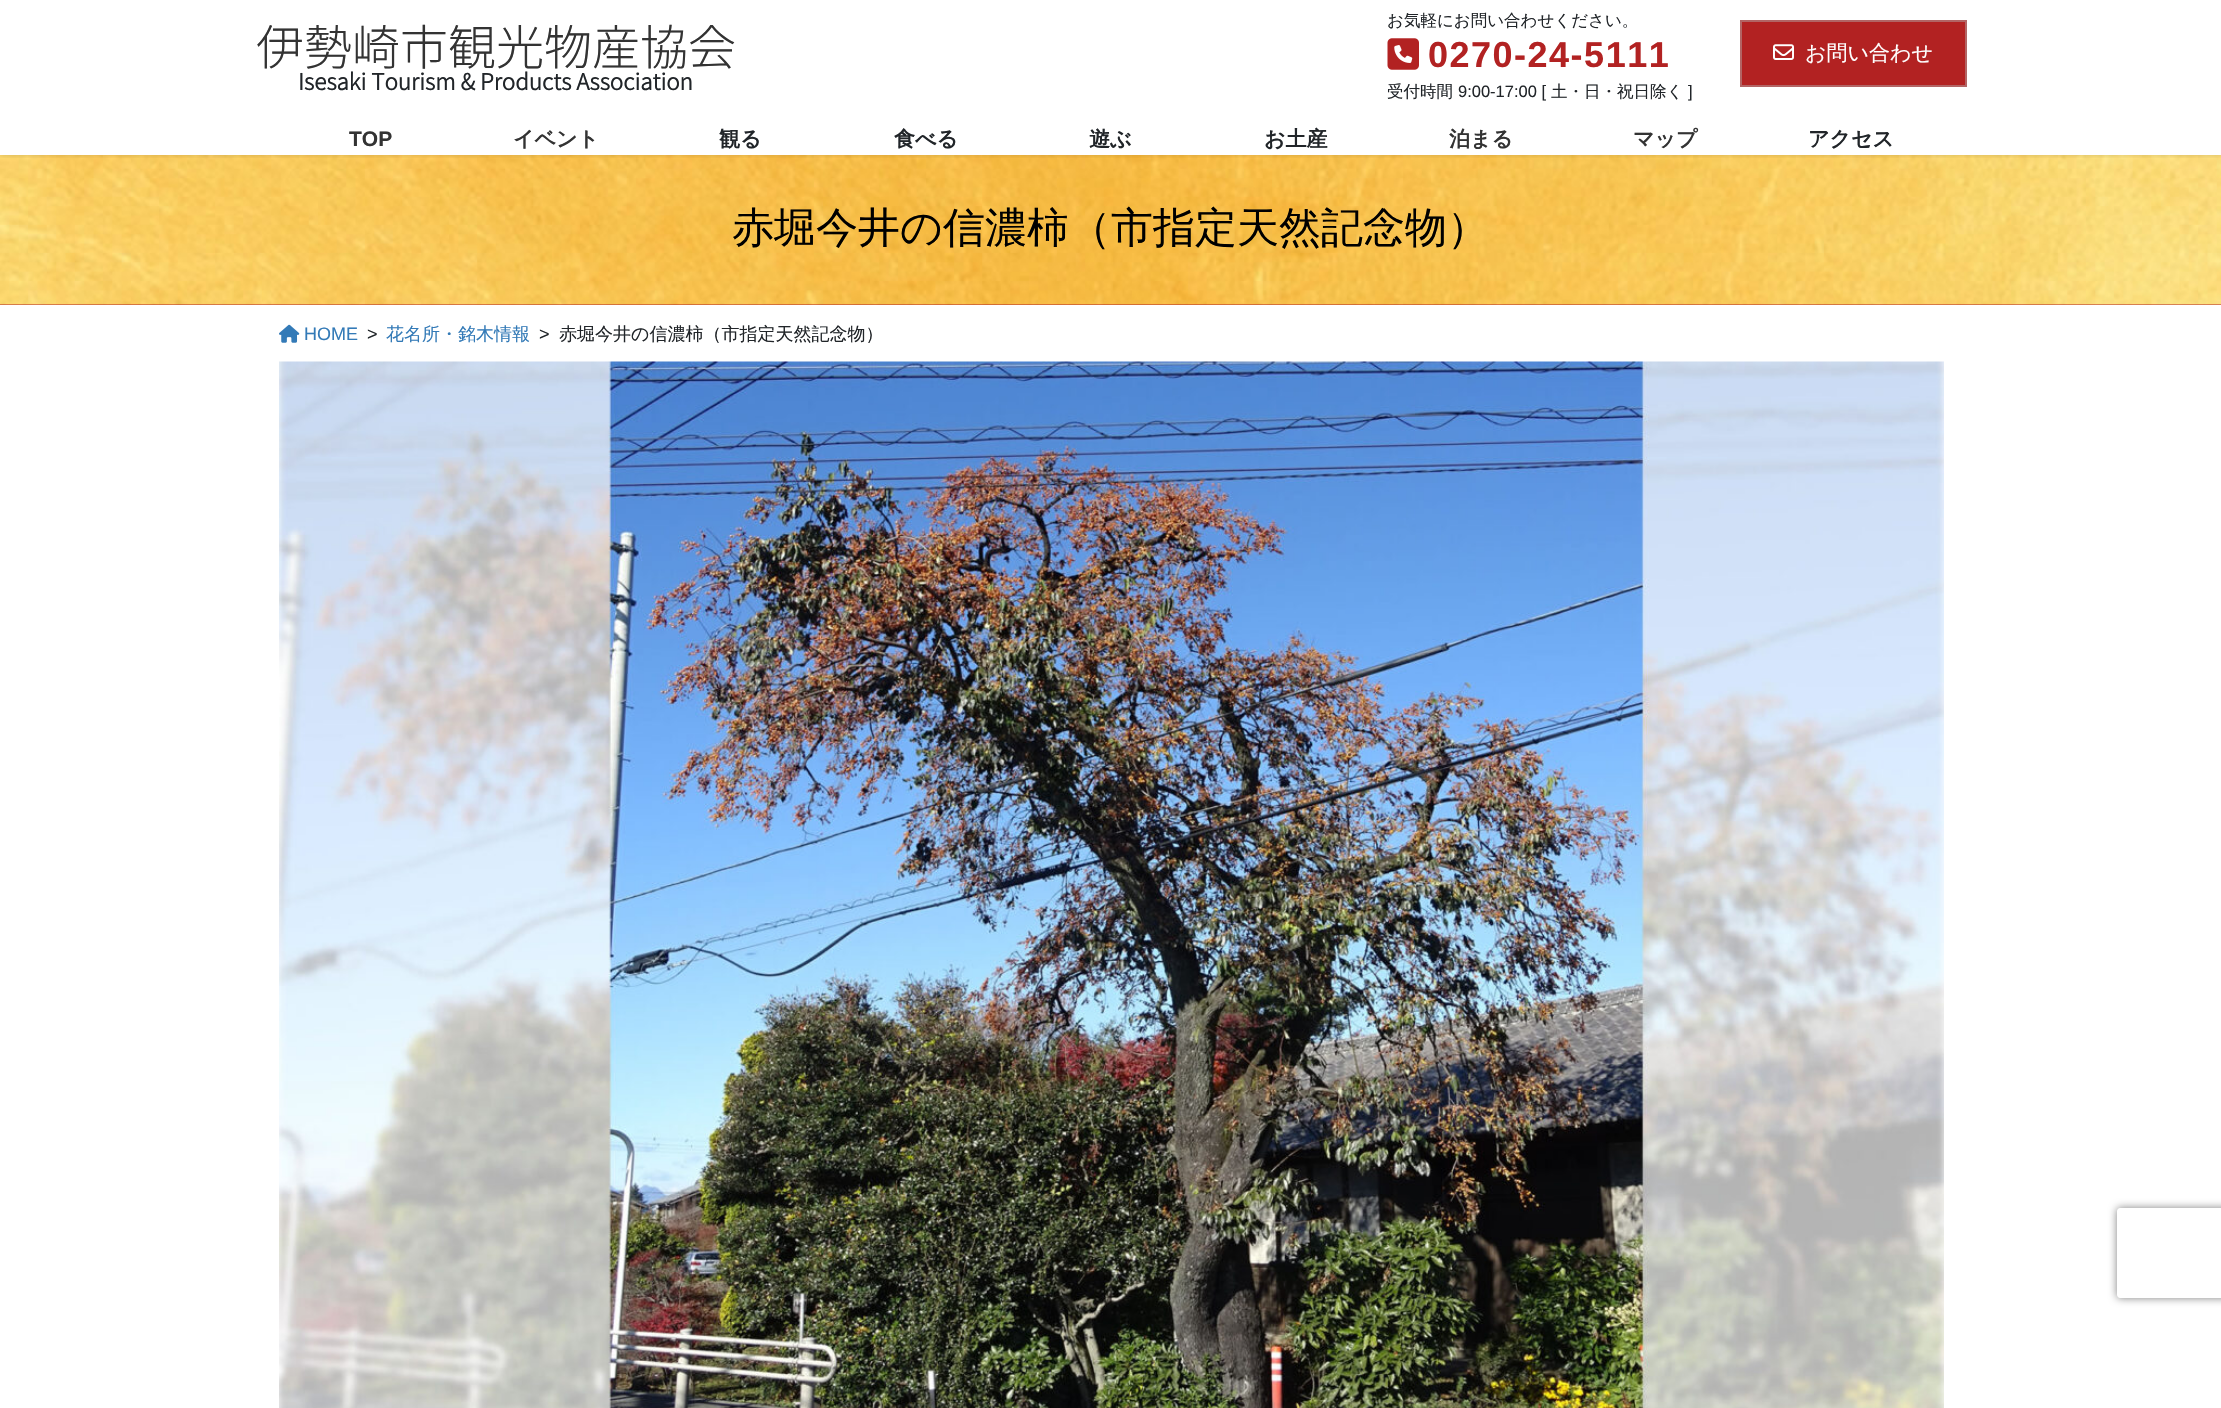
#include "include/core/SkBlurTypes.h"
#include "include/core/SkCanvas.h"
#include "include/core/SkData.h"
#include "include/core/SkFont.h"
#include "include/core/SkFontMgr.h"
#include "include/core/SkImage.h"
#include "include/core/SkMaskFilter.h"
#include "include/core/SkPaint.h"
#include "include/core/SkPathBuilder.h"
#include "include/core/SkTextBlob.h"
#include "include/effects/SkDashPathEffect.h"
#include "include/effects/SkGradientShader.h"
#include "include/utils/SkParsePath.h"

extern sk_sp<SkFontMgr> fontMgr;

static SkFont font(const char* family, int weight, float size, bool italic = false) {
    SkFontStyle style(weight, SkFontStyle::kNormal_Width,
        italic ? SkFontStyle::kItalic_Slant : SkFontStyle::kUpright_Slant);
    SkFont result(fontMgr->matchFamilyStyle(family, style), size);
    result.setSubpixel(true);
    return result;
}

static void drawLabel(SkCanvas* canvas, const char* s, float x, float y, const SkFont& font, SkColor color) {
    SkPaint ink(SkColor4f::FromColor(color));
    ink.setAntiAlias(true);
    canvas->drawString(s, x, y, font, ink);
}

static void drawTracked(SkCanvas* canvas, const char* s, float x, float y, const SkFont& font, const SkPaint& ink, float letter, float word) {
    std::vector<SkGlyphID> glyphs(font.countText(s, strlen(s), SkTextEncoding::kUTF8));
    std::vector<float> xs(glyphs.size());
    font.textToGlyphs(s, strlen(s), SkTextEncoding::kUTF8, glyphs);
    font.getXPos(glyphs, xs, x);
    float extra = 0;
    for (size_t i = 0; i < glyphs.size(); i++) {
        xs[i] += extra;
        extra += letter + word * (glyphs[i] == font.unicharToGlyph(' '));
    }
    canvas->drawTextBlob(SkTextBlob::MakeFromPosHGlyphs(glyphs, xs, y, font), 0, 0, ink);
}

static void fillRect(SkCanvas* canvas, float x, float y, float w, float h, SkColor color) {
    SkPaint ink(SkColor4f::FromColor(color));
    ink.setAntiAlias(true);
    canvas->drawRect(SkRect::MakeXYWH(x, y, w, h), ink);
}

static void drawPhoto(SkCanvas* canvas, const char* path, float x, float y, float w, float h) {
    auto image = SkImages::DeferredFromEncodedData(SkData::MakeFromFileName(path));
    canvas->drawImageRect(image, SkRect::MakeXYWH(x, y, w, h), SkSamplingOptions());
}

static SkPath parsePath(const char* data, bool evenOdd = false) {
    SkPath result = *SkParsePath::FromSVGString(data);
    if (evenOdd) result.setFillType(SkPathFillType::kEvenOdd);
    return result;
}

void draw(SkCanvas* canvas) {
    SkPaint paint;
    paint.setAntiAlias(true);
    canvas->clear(0xFFFFFFFF);
    fillRect(canvas, 0, 304, 2221, 1, 0xFFB22222);
    drawPhoto(canvas, "assets/img3.png", 0, 155, 2221, 150);
    canvas->save();
    canvas->clipRect(SkRect::MakeXYWH(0, 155, 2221, 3));
    paint.setColor(0x1A000000);
    paint.setMaskFilter(SkMaskFilter::MakeBlur(kNormal_SkBlurStyle, 2));
    canvas->drawRect(SkRect::MakeXYWH(0, 2, 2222, 154), paint);
    paint.setMaskFilter(nullptr);
    canvas->restore();
    SkFont font1 = font("Noto Sans JP", 100, 48);
    drawLabel(canvas, "伊勢崎市観光物産協会", 256, 65, font1, 0xFF333333);
    SkFont font2 = font("Noto Sans JP", 700, 22.5f);
    drawLabel(canvas, "Isesaki Tourism & Products Association", 298, 90, font2, 0xFF212529);
    SkFont font3 = font("WenQuanYi Zen Hei", 500, 16.5f);
    drawLabel(canvas, "お気軽にお問い合わせください。", 1387, 26, font3, 0xFF212529);
    drawPhoto(canvas, "assets/img1.png", 1387, 38, 32, 32);
    SkFont font4 = font("Liberation Sans", 700, 36);
    paint.setColor(0xFFB22222);
    drawTracked(canvas, "0270-24-5111", 1428, 67, font4, paint, 1.5f, 0);
    drawLabel(canvas, "受付時間", 1387, 97, font3, 0xFF212529);
    SkFont font5 = font("Liberation Sans", 400, 16.5f);
    drawLabel(canvas, "9:00-17:00 [", 1458, 97, font5, 0xFF212529);
    drawLabel(canvas, "土・日・祝日除く", 1551, 97, font3, 0xFF212529);
    drawLabel(canvas, "]", 1688, 97, font5, 0xFF212529);
    canvas->drawRect(SkRect::MakeXYWH(1741, 21, 225, 65), paint);
    paint.setStroke(true);
    paint.setStrokeWidth(2);
    paint.setColor(0xFFB26565);
    canvas->drawRect(SkRect::MakeXYWH(1741, 21, 225, 65), paint);
    drawPhoto(canvas, "assets/img2.png", 1773, 44, 21, 16);
    SkFont font6 = font("WenQuanYi Zen Hei", 500, 21);
    drawLabel(canvas, "お問い合わせ", 1805, 60, font6, 0xFFFFFFFF);
    fillRect(canvas, 0, 154, 2221, 1, 0xFFFFFFFF);
    SkFont font7 = font("Liberation Sans", 700, 21);
    drawLabel(canvas, "TOP", 349, 146, font7, 0xFF333333);
    SkFont font8 = font("WenQuanYi Zen Hei", 700, 21);
    drawLabel(canvas, "イベント", 513, 146, font8, 0xFF333333);
    drawLabel(canvas, "観る", 719, 146, font8, 0xFF212529);
    drawLabel(canvas, "食べる", 894, 146, font8, 0xFF212529);
    drawLabel(canvas, "遊ぶ", 1089, 146, font8, 0xFF212529);
    drawLabel(canvas, "お土産", 1264, 146, font8, 0xFF212529);
    drawLabel(canvas, "泊まる", 1449, 146, font8, 0xFF333333);
    drawLabel(canvas, "マップ", 1633, 146, font8, 0xFF333333);
    drawLabel(canvas, "アクセス", 1808, 146, font8, 0xFF212529);
    SkFont font9 = font("WenQuanYi Zen Hei", 500, 42);
    drawLabel(canvas, "赤堀今井の信濃柿（市指定天然記念物）", 732, 242, font9, 0xFF000000);
    drawPhoto(canvas, "assets/img4.png", 279, 324, 21, 19);
    SkFont font10 = font("Liberation Sans", 400, 18);
    drawLabel(canvas, "HOME", 304, 340, font10, 0xFF337AB7);
    drawLabel(canvas, ">", 367, 340, font10, 0xFF212529);
    SkFont font11 = font("WenQuanYi Zen Hei", 500, 18);
    drawLabel(canvas, "花名所・銘木情報", 386, 340, font11, 0xFF337AB7);
    drawLabel(canvas, ">", 539, 340, font10, 0xFF212529);
    drawLabel(canvas, "赤堀今井の信濃柿（市指定天然記念物）", 559, 340, font11, 0xFF212529);
    drawPhoto(canvas, "assets/img5.png", 279, 361, 1665, 1047);
    canvas->save();
    canvas->clipPath(parsePath("M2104 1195H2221V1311H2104ZM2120 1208H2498C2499.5 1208 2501 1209.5 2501 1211V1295C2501 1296.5 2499.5 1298 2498 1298H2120C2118.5 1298 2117 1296.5 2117 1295V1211C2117 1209.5 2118.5 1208 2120 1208Z", true), true);
    paint.setStroke(false);
    paint.setColor(0xFF808080);
    paint.setMaskFilter(SkMaskFilter::MakeBlur(kNormal_SkBlurStyle, 4));
    canvas->drawRoundRect(SkRect::MakeXYWH(2117, 1208, 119, 90), 3, 3, paint);
    paint.setMaskFilter(nullptr);
    canvas->restore();
}
